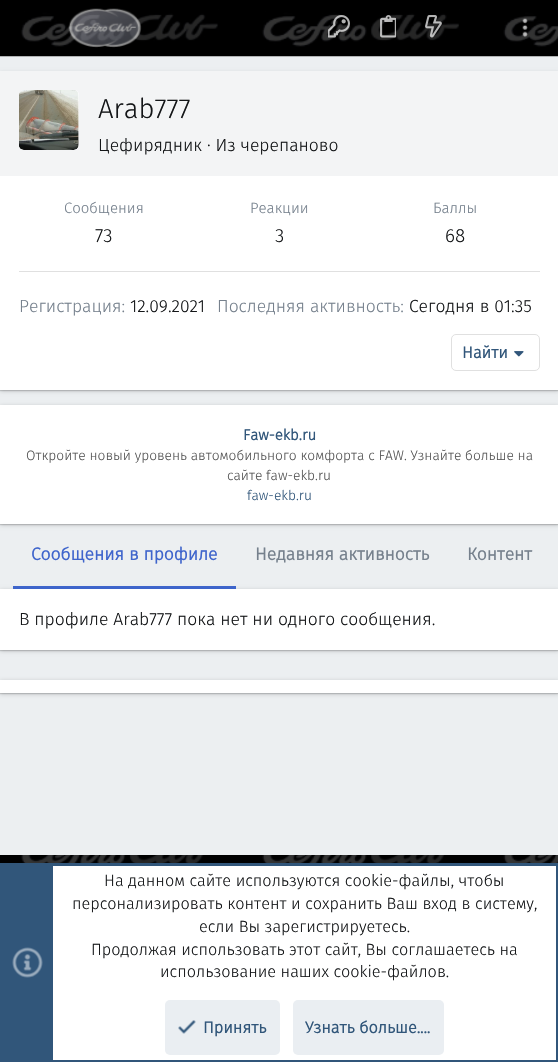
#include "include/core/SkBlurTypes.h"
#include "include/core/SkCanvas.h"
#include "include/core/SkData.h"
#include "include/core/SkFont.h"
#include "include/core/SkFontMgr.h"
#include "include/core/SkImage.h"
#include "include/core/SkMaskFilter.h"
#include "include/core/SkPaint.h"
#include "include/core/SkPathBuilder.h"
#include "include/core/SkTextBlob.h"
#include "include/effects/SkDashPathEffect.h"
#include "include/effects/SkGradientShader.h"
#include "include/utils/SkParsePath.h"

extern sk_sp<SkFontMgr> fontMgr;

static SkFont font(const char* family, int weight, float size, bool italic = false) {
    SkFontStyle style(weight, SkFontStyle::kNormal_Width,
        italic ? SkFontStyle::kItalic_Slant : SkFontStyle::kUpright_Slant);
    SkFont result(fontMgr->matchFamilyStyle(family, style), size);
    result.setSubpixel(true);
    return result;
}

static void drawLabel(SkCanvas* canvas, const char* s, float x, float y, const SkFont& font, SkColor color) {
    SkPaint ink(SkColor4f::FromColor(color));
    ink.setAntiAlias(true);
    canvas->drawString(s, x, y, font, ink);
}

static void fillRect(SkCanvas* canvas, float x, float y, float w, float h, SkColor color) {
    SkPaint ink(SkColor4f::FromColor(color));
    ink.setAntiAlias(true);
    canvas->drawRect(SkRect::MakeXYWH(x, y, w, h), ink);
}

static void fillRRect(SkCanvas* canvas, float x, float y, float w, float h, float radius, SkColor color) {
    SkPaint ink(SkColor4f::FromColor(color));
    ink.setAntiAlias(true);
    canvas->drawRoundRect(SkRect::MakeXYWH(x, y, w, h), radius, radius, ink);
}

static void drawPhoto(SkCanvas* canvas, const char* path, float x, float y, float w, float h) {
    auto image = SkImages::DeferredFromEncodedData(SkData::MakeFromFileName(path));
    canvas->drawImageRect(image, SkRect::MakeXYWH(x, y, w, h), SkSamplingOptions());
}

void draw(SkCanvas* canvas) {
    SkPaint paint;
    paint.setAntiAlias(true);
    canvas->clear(0xFFECEFF1);
    drawPhoto(canvas, "assets/img1.png", 0, 0, 558, 57);
    drawPhoto(canvas, "assets/img2.png", 68, 8, 74, 40);
    drawPhoto(canvas, "assets/img3.png", 328, 15, 22, 23);
    drawPhoto(canvas, "assets/img4.png", 380, 15, 16, 23);
    drawPhoto(canvas, "assets/img5.png", 425, 15, 17, 23);
    drawPhoto(canvas, "assets/img6.png", 522, 18, 6, 19);
    paint.setColor(0x33000000);
    paint.setMaskFilter(SkMaskFilter::MakeBlur(kNormal_SkBlurStyle, 2));
    canvas->drawRect(SkRect::MakeXYWH(0, 73, 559, 318), paint);
    paint.setMaskFilter(nullptr);
    paint.setColor(0x24000000);
    paint.setMaskFilter(SkMaskFilter::MakeBlur(kNormal_SkBlurStyle, 0.5f));
    canvas->drawRect(SkRect::MakeXYWH(0, 73, 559, 318), paint);
    paint.setMaskFilter(nullptr);
    fillRect(canvas, 0, 176, 558, 214, 0xFFFFFFFF);
    fillRect(canvas, 0, 71, 558, 105, 0xFFF3F4F5);
    fillRRect(canvas, 19, 90, 60, 60, 5, 0xFFFFFFFF);
    drawPhoto(canvas, "assets/img7.png", 19, 90, 60, 60);
    SkFont font1 = font("Fira Sans", 300, 27.5f);
    drawLabel(canvas, "Arab777", 98, 118, font1, 0xFF141618);
    SkFont font2 = font("Fira Sans", 300, 17.5f);
    drawLabel(canvas, "Цефирядник · Из черепаново", 98, 151, font2, 0xFF141618);
    SkFont font3 = font("Fira Sans", 300, 15);
    drawLabel(canvas, "Сообщения", 64, 213, font3, 0xFF76818D);
    SkFont font4 = font("Fira Sans", 300, 19);
    drawLabel(canvas, "73", 95, 242, font4, 0xFF141618);
    drawLabel(canvas, "Реакции", 250, 213, font3, 0xFF76818D);
    drawLabel(canvas, "3", 275, 242, font4, 0xFF141618);
    drawLabel(canvas, "Баллы", 433, 213, font3, 0xFF76818D);
    drawLabel(canvas, "68", 445, 242, font4, 0xFF141618);
    fillRect(canvas, 19, 271, 521, 1, 0xFFE0E0E0);
    drawLabel(canvas, "Регистрация:", 19, 312, font2, 0xFF76818D);
    drawLabel(canvas, "12.09.2021", 130, 312, font2, 0xFF141618);
    drawLabel(canvas, "Последняя активность:", 217, 312, font2, 0xFF76818D);
    drawLabel(canvas, "Сегодня в 01:35", 409, 312, font2, 0xFF141618);
    paint.setStroke(true);
    paint.setStrokeWidth(1);
    paint.setColor(0xFFE0E0E0);
    canvas->drawRoundRect(SkRect::MakeXYWH(451.5f, 334.5f, 88, 36), 4.5f, 4.5f, paint);
    SkFont font5 = font("Fira Sans", 700, 16.25f);
    drawLabel(canvas, "Найти", 462, 358, font5, 0xFF31567A);
    drawPhoto(canvas, "assets/img8.png", 514, 351, 10, 6);
    paint.setStroke(false);
    paint.setColor(0x33000000);
    paint.setMaskFilter(SkMaskFilter::MakeBlur(kNormal_SkBlurStyle, 2));
    canvas->drawRect(SkRect::MakeXYWH(0, 406, 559, 119), paint);
    paint.setMaskFilter(nullptr);
    paint.setColor(0x24000000);
    paint.setMaskFilter(SkMaskFilter::MakeBlur(kNormal_SkBlurStyle, 0.5f));
    canvas->drawRect(SkRect::MakeXYWH(0, 406, 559, 119), paint);
    paint.setMaskFilter(nullptr);
    fillRect(canvas, 0, 405, 558, 119, 0xFFFFFFFF);
    SkFont font6 = font("Fira Sans", 700, 15);
    drawLabel(canvas, "Faw-ekb.ru", 243, 440, font6, 0xFF31567A);
    SkFont font7 = font("Fira Sans", 300, 13.75f);
    drawLabel(canvas, "Откройте новый уровень автомобильного комфорта с FAW. Узнайте больше на", 26, 460, font7, 0xFF555555);
    drawLabel(canvas, "сайте faw-ekb.ru", 227, 480, font7, 0xFF555555);
    drawLabel(canvas, "faw-ekb.ru", 247, 500, font7, 0xFF31567A);
    paint.setColor(0x33000000);
    paint.setMaskFilter(SkMaskFilter::MakeBlur(kNormal_SkBlurStyle, 2));
    canvas->drawRect(SkRect::MakeXYWH(0, 590, 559, 61), paint);
    paint.setMaskFilter(nullptr);
    paint.setColor(0x24000000);
    paint.setMaskFilter(SkMaskFilter::MakeBlur(kNormal_SkBlurStyle, 0.5f));
    canvas->drawRect(SkRect::MakeXYWH(0, 590, 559, 61), paint);
    paint.setMaskFilter(nullptr);
    fillRect(canvas, 13, 586, 223, 3, 0xDE2550C6);
    SkFont font8 = font("Fira Sans", 700, 17.5f);
    drawLabel(canvas, "Сообщения в профиле", 31, 560, font8, 0xFF3F65CC);
    drawLabel(canvas, "Недавняя активность", 255, 560, font8, 0xFF76818D);
    drawLabel(canvas, "Контент", 467, 560, font8, 0xFF76818D);
    fillRect(canvas, 0, 589, 558, 61, 0xFFFFFFFF);
    drawLabel(canvas, "В профиле Arab777 пока нет ни одного сообщения.", 19, 625, font2, 0xFF141618);
    paint.setColor(0x33000000);
    paint.setMaskFilter(SkMaskFilter::MakeBlur(kNormal_SkBlurStyle, 2));
    canvas->drawRect(SkRect::MakeXYWH(0, 681, 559, 13), paint);
    paint.setMaskFilter(nullptr);
    paint.setColor(0x24000000);
    paint.setMaskFilter(SkMaskFilter::MakeBlur(kNormal_SkBlurStyle, 0.5f));
    canvas->drawRect(SkRect::MakeXYWH(0, 681, 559, 13), paint);
    paint.setMaskFilter(nullptr);
    fillRect(canvas, 0, 680, 558, 13, 0xFFFFFFFF);
    drawPhoto(canvas, "assets/img9.png", 0, 855, 558, 8);
    fillRect(canvas, 53, 866, 503, 194, 0xFFFFFFFF);
    paint.setStroke(true);
    paint.setStrokeWidth(3);
    paint.setColor(0xFF31567A);
    canvas->drawRect(SkRect::MakeXYWH(1.5f, 864.5f, 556, 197), paint);
    fillRect(canvas, 3, 866, 50, 194, 0xFF31567A);
    drawPhoto(canvas, "assets/img10.png", 12, 947, 31, 31);
    SkFont font9 = font("Fira Sans", 300, 16.25f);
    drawLabel(canvas, "На данном сайте используются cookie-файлы, чтобы", 104, 886, font9, 0xFF141618);
    drawLabel(canvas, "персонализировать контент и сохранить Ваш вход в систему,", 72, 909, font9, 0xFF141618);
    drawLabel(canvas, "если Вы зарегистрируетесь.", 199, 932, font9, 0xFF141618);
    drawLabel(canvas, "Продолжая использовать этот сайт, Вы соглашаетесь на", 91, 955, font9, 0xFF141618);
    drawLabel(canvas, "использование наших cookie-файлов.", 160, 977, font9, 0xFF141618);
    fillRRect(canvas, 165, 1000, 115, 55, 5, 0xFFEAEEF2);
    drawPhoto(canvas, "assets/img11.png", 178, 1020, 18, 14);
    drawLabel(canvas, "Принять", 203, 1033, font5, 0xFF31567A);
    fillRRect(canvas, 293, 1000, 151, 55, 5, 0xFFEAEEF2);
    drawLabel(canvas, "Узнать больше....", 305, 1033, font5, 0xFF31567A);
}
